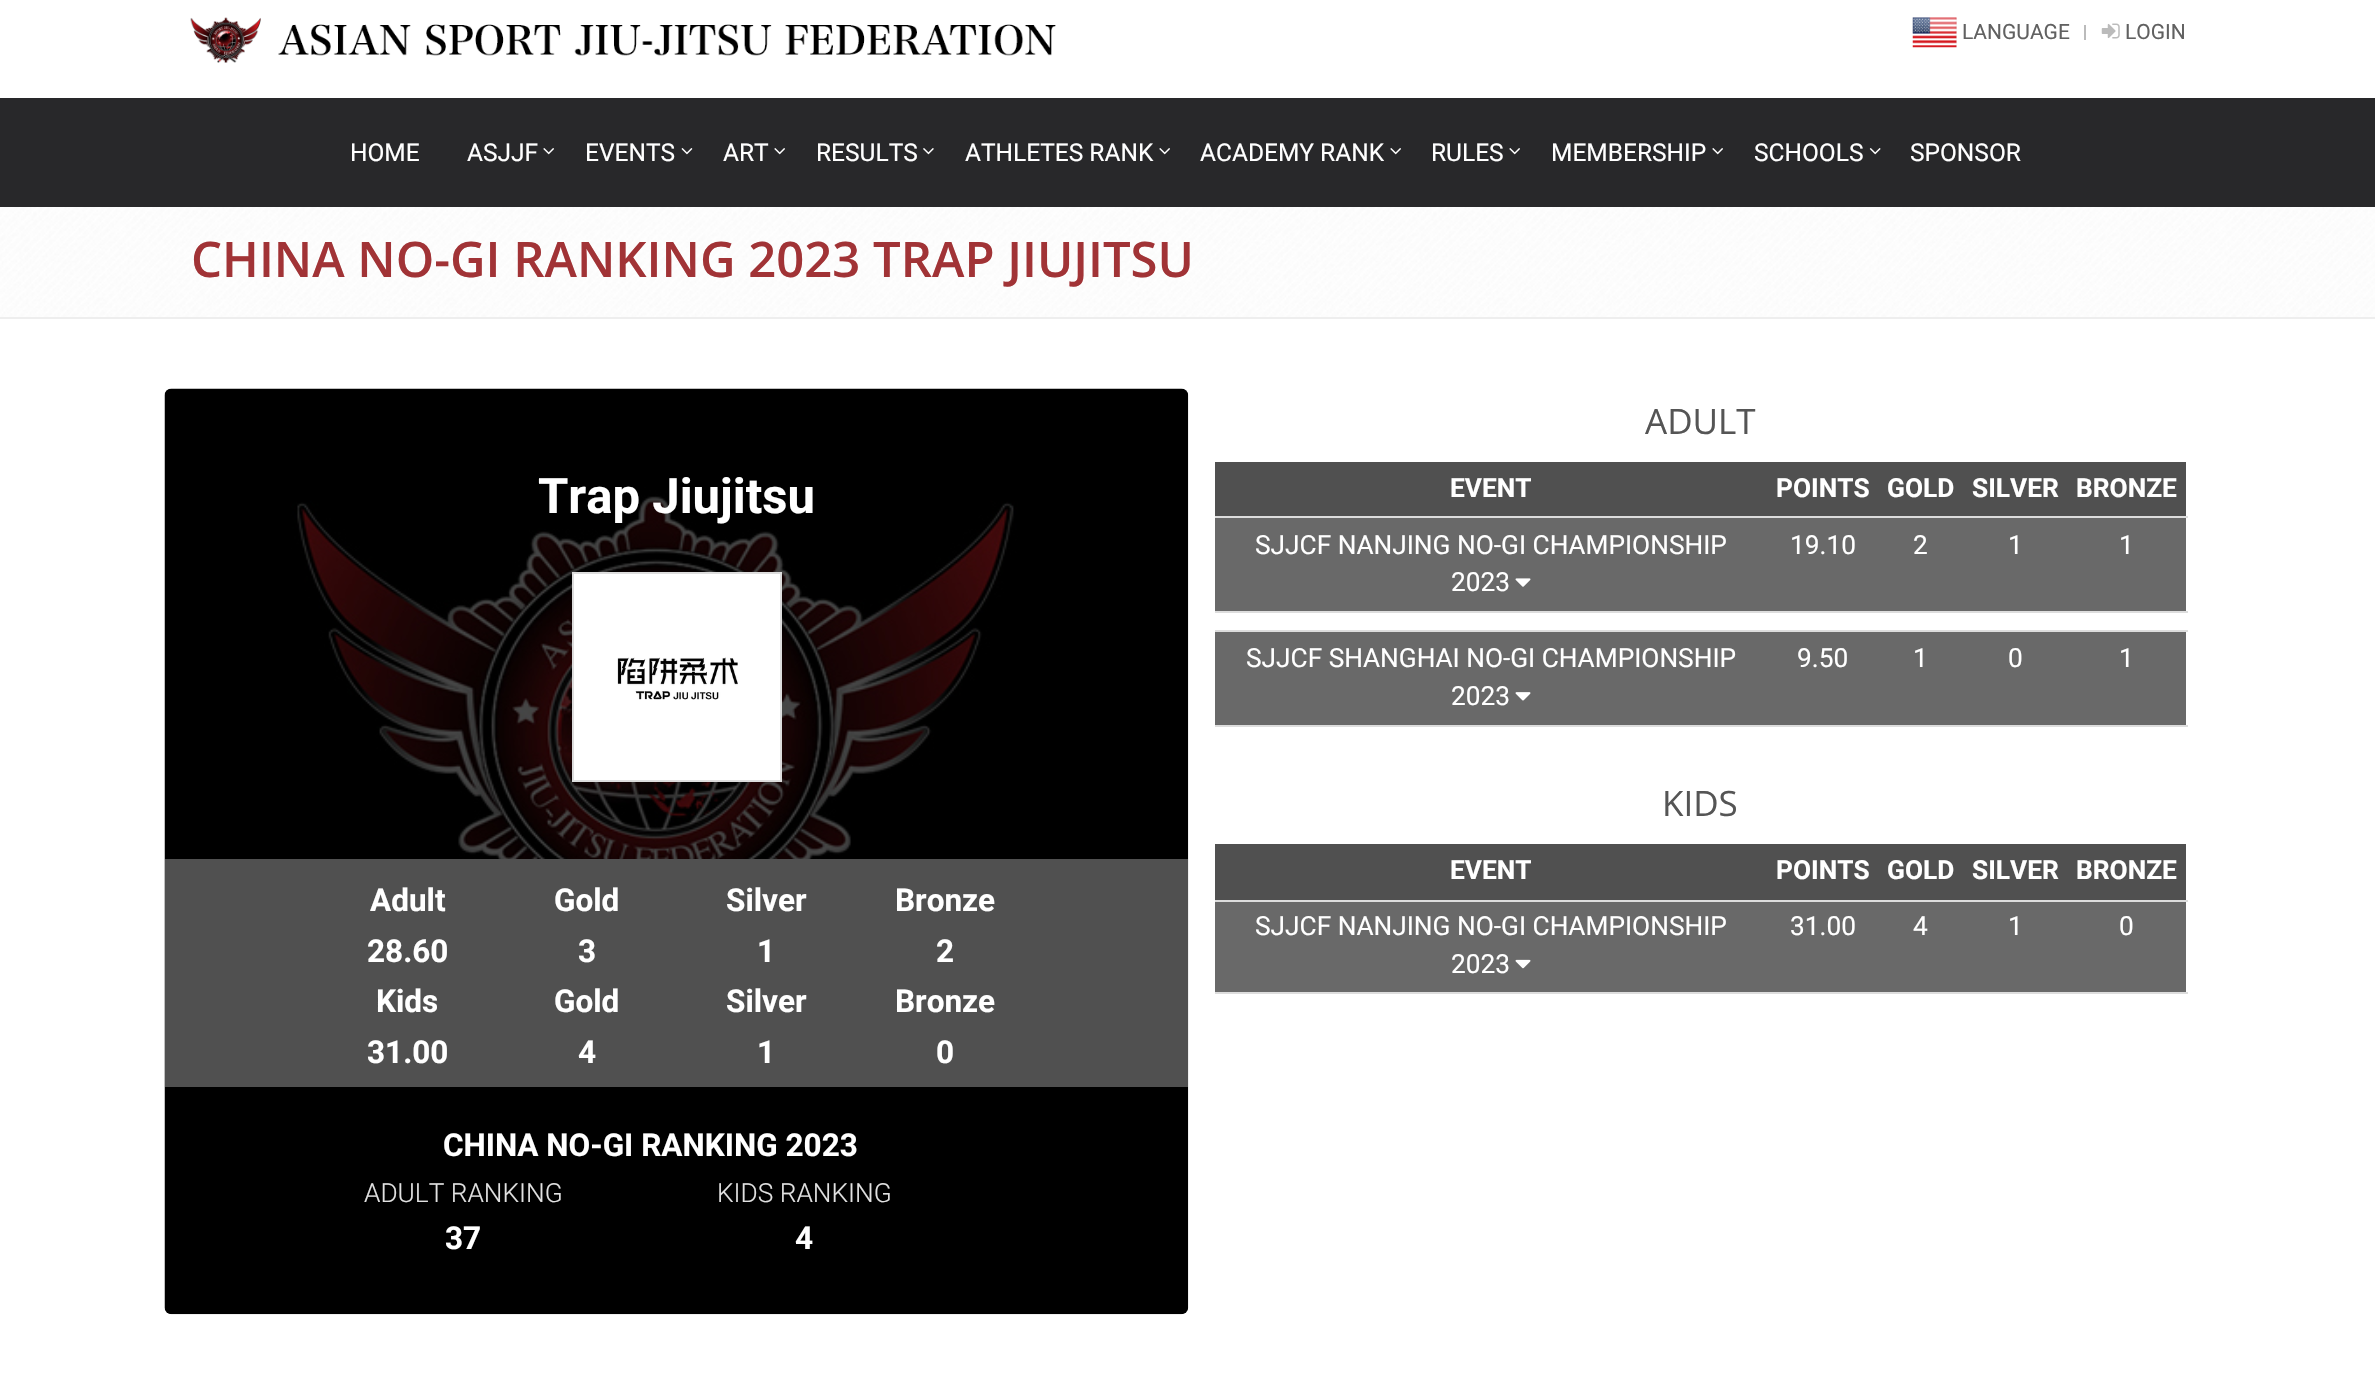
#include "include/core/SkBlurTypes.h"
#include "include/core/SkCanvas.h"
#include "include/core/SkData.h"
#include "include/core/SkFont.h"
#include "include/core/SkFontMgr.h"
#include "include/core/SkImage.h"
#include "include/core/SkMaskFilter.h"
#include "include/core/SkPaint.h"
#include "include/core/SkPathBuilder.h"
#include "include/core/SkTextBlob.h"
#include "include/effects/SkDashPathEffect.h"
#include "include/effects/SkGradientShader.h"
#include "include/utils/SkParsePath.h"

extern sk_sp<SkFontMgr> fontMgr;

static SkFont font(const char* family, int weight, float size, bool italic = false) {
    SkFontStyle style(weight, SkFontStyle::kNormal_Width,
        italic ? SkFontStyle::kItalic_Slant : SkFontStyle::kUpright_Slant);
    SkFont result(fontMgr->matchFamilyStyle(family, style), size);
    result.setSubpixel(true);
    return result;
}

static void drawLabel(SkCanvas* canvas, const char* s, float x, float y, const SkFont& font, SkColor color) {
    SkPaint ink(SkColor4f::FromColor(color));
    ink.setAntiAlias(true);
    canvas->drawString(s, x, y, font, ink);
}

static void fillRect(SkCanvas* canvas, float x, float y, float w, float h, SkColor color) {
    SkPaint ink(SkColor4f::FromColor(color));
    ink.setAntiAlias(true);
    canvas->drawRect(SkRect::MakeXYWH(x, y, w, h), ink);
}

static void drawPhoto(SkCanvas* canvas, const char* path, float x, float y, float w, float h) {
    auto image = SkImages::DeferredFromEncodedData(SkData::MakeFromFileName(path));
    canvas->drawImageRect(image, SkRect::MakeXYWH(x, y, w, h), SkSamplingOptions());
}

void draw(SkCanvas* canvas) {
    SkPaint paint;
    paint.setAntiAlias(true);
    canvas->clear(0xFFFFFFFF);
    drawPhoto(canvas, "assets/img1.png", 190, 17, 71, 46);
    drawPhoto(canvas, "assets/img2.png", 278, 24, 778, 32);
    drawPhoto(canvas, "assets/img3.png", 1912, 17, 45, 31);
    SkFont font1 = font("Roboto", 400, 21);
    drawLabel(canvas, "LANGUAGE", 1962, 39, font1, 0xFF616161);
    fillRect(canvas, 2084, 25, 2, 15, 0xFFBBBBBB);
    drawPhoto(canvas, "assets/img4.png", 2101, 23, 19, 16);
    drawLabel(canvas, "LOGIN", 2125, 39, font1, 0xFF616161);
    fillRect(canvas, 0, 98, 2375, 109, 0xFF28282A);
    SkFont font2 = font("Roboto", 400, 24.5f);
    drawLabel(canvas, "HOME", 350, 161, font2, 0xFFFFFFFF);
    drawLabel(canvas, "ASJJF", 467, 161, font2, 0xFFFFFFFF);
    drawPhoto(canvas, "assets/img5.png", 543, 148, 11, 7);
    drawLabel(canvas, "EVENTS", 585, 161, font2, 0xFFFFFFFF);
    drawPhoto(canvas, "assets/img6.png", 681, 148, 12, 7);
    drawLabel(canvas, "ART", 723, 161, font2, 0xFFFFFFFF);
    drawPhoto(canvas, "assets/img5.png", 774, 148, 11, 7);
    drawLabel(canvas, "RESULTS", 816, 161, font2, 0xFFFFFFFF);
    drawPhoto(canvas, "assets/img7.png", 923, 148, 11, 7);
    drawLabel(canvas, "ATHLETES RANK", 965, 161, font2, 0xFFFFFFFF);
    drawPhoto(canvas, "assets/img5.png", 1159, 148, 11, 7);
    drawLabel(canvas, "ACADEMY RANK", 1200, 161, font2, 0xFFFFFFFF);
    drawPhoto(canvas, "assets/img5.png", 1390, 148, 11, 7);
    drawLabel(canvas, "RULES", 1431, 161, font2, 0xFFFFFFFF);
    drawPhoto(canvas, "assets/img5.png", 1509, 148, 11, 7);
    drawLabel(canvas, "MEMBERSHIP", 1551, 161, font2, 0xFFFFFFFF);
    drawPhoto(canvas, "assets/img5.png", 1712, 148, 11, 7);
    drawLabel(canvas, "SCHOOLS", 1754, 161, font2, 0xFFFFFFFF);
    drawPhoto(canvas, "assets/img8.png", 1869, 148, 12, 7);
    drawLabel(canvas, "SPONSOR", 1910, 161, font2, 0xFFFFFFFF);
    drawPhoto(canvas, "assets/img9.png", 0, 207, 2375, 110);
    fillRect(canvas, 0, 317, 2375, 2, 0xFFEEEEEE);
    SkFont font3 = font("Open Sans", 600, 49);
    drawLabel(canvas, "CHINA NO-GI RANKING 2023 TRAP JIUJITSU", 191, 277, font3, 0xFFA13336);
    drawPhoto(canvas, "assets/img10.png", 164, 388, 1025, 927);
    SkFont font4 = font("Roboto", 700, 49);
    drawLabel(canvas, "Trap Jiujitsu", 538, 513, font4, 0xFFFFFFFF);
    paint.setColor(0xFFFFFFFF);
    canvas->drawRect(SkRect::MakeXYWH(573, 573, 208, 208), paint);
    paint.setStroke(true);
    paint.setStrokeWidth(2);
    paint.setColor(0xFFDDDDDD);
    canvas->drawRect(SkRect::MakeXYWH(573, 573, 208, 208), paint);
    drawPhoto(canvas, "assets/img11.png", 617, 657, 121, 43);
    fillRect(canvas, 165, 859, 1023, 228, 0xFF505050);
    SkFont font5 = font("Roboto", 700, 31.5f);
    drawLabel(canvas, "Adult", 370, 911, font5, 0xFFFFFFFF);
    drawLabel(canvas, "28.60", 367, 962, font5, 0xFFFFFFFF);
    drawLabel(canvas, "Gold", 554, 911, font5, 0xFFFFFFFF);
    drawLabel(canvas, "3", 578, 962, font5, 0xFFFFFFFF);
    drawLabel(canvas, "Silver", 726, 911, font5, 0xFFFFFFFF);
    drawLabel(canvas, "1", 757, 962, font5, 0xFFFFFFFF);
    drawLabel(canvas, "Bronze", 895, 911, font5, 0xFFFFFFFF);
    drawLabel(canvas, "2", 936, 962, font5, 0xFFFFFFFF);
    drawLabel(canvas, "Kids", 376, 1012, font5, 0xFFFFFFFF);
    drawLabel(canvas, "31.00", 367, 1063, font5, 0xFFFFFFFF);
    drawLabel(canvas, "Gold", 554, 1012, font5, 0xFFFFFFFF);
    drawLabel(canvas, "4", 578, 1063, font5, 0xFFFFFFFF);
    drawLabel(canvas, "Silver", 726, 1012, font5, 0xFFFFFFFF);
    drawLabel(canvas, "1", 757, 1063, font5, 0xFFFFFFFF);
    drawLabel(canvas, "Bronze", 895, 1012, font5, 0xFFFFFFFF);
    drawLabel(canvas, "0", 936, 1063, font5, 0xFFFFFFFF);
    drawLabel(canvas, "CHINA NO-GI RANKING 2023", 443, 1156, font5, 0xFFFFFFFF);
    SkFont font6 = font("Roboto", 300, 26.25f);
    drawLabel(canvas, "ADULT RANKING", 364, 1202, font6, 0xFFE1E1E1);
    drawLabel(canvas, "37", 445, 1249, font5, 0xFFFFFFFF);
    drawLabel(canvas, "KIDS RANKING", 717, 1202, font6, 0xFFE1E1E1);
    drawLabel(canvas, "4", 795, 1249, font5, 0xFFFFFFFF);
    SkFont font7 = font("Open Sans", 400, 35);
    drawLabel(canvas, "ADULT", 1645, 434, font7, 0xFF555555);
    fillRect(canvas, 1215, 462, 971, 54, 0xFF505050);
    SkFont font8 = font("Roboto", 700, 26.25f);
    drawLabel(canvas, "EVENT", 1450, 497, font8, 0xFFFFFFFF);
    drawLabel(canvas, "POINTS", 1776, 497, font8, 0xFFFFFFFF);
    drawLabel(canvas, "GOLD", 1887, 497, font8, 0xFFFFFFFF);
    drawLabel(canvas, "SILVER", 1972, 497, font8, 0xFFFFFFFF);
    drawLabel(canvas, "BRONZE", 2076, 497, font8, 0xFFFFFFFF);
    fillRect(canvas, 1215, 518, 971, 93, 0xFF696969);
    SkFont font9 = font("Roboto", 400, 26.25f);
    drawLabel(canvas, "SJJCF NANJING NO-GI CHAMPIONSHIP", 1255, 554, font9, 0xFFFFFFFF);
    drawLabel(canvas, "2023", 1451, 591, font9, 0xFFFFFFFF);
    drawPhoto(canvas, "assets/img12.png", 1515, 578, 16, 9);
    drawLabel(canvas, "19.10", 1790, 554, font9, 0xFFFFFFFF);
    drawLabel(canvas, "2", 1913, 554, font9, 0xFFFFFFFF);
    drawLabel(canvas, "1", 2008, 554, font9, 0xFFFFFFFF);
    fillRect(canvas, 1215, 516, 973, 2, 0xFFDDDDDD);
    drawLabel(canvas, "1", 2119, 554, font9, 0xFFFFFFFF);
    fillRect(canvas, 1215, 611, 973, 2, 0xFFDDDDDD);
    fillRect(canvas, 1215, 632, 971, 93, 0xFF696969);
    drawLabel(canvas, "SJJCF SHANGHAI NO-GI CHAMPIONSHIP", 1246, 667, font9, 0xFFFFFFFF);
    drawLabel(canvas, "2023", 1451, 705, font9, 0xFFFFFFFF);
    drawPhoto(canvas, "assets/img13.png", 1515, 692, 16, 9);
    drawLabel(canvas, "9.50", 1797, 667, font9, 0xFFFFFFFF);
    drawLabel(canvas, "1", 1913, 667, font9, 0xFFFFFFFF);
    drawLabel(canvas, "0", 2008, 667, font9, 0xFFFFFFFF);
    fillRect(canvas, 1215, 630, 973, 2, 0xFFDDDDDD);
    drawLabel(canvas, "1", 2119, 667, font9, 0xFFFFFFFF);
    fillRect(canvas, 1215, 725, 973, 2, 0xFFDDDDDD);
    drawLabel(canvas, "KIDS", 1662, 816, font7, 0xFF555555);
    fillRect(canvas, 1215, 844, 971, 56, 0xFF505050);
    drawLabel(canvas, "EVENT", 1450, 879, font8, 0xFFFFFFFF);
    drawLabel(canvas, "POINTS", 1776, 879, font8, 0xFFFFFFFF);
    drawLabel(canvas, "GOLD", 1887, 879, font8, 0xFFFFFFFF);
    drawLabel(canvas, "SILVER", 1972, 879, font8, 0xFFFFFFFF);
    drawLabel(canvas, "BRONZE", 2076, 879, font8, 0xFFFFFFFF);
    fillRect(canvas, 1215, 902, 971, 90, 0xFF696969);
    drawLabel(canvas, "SJJCF NANJING NO-GI CHAMPIONSHIP", 1255, 935, font9, 0xFFFFFFFF);
    drawLabel(canvas, "2023", 1451, 973, font9, 0xFFFFFFFF);
    drawPhoto(canvas, "assets/img14.png", 1515, 959, 16, 10);
    drawLabel(canvas, "31.00", 1790, 935, font9, 0xFFFFFFFF);
    drawLabel(canvas, "4", 1913, 935, font9, 0xFFFFFFFF);
    drawLabel(canvas, "1", 2008, 935, font9, 0xFFFFFFFF);
    fillRect(canvas, 1215, 900, 973, 2, 0xFFDDDDDD);
    drawLabel(canvas, "0", 2119, 935, font9, 0xFFFFFFFF);
    fillRect(canvas, 1215, 992, 973, 2, 0xFFDDDDDD);
}
